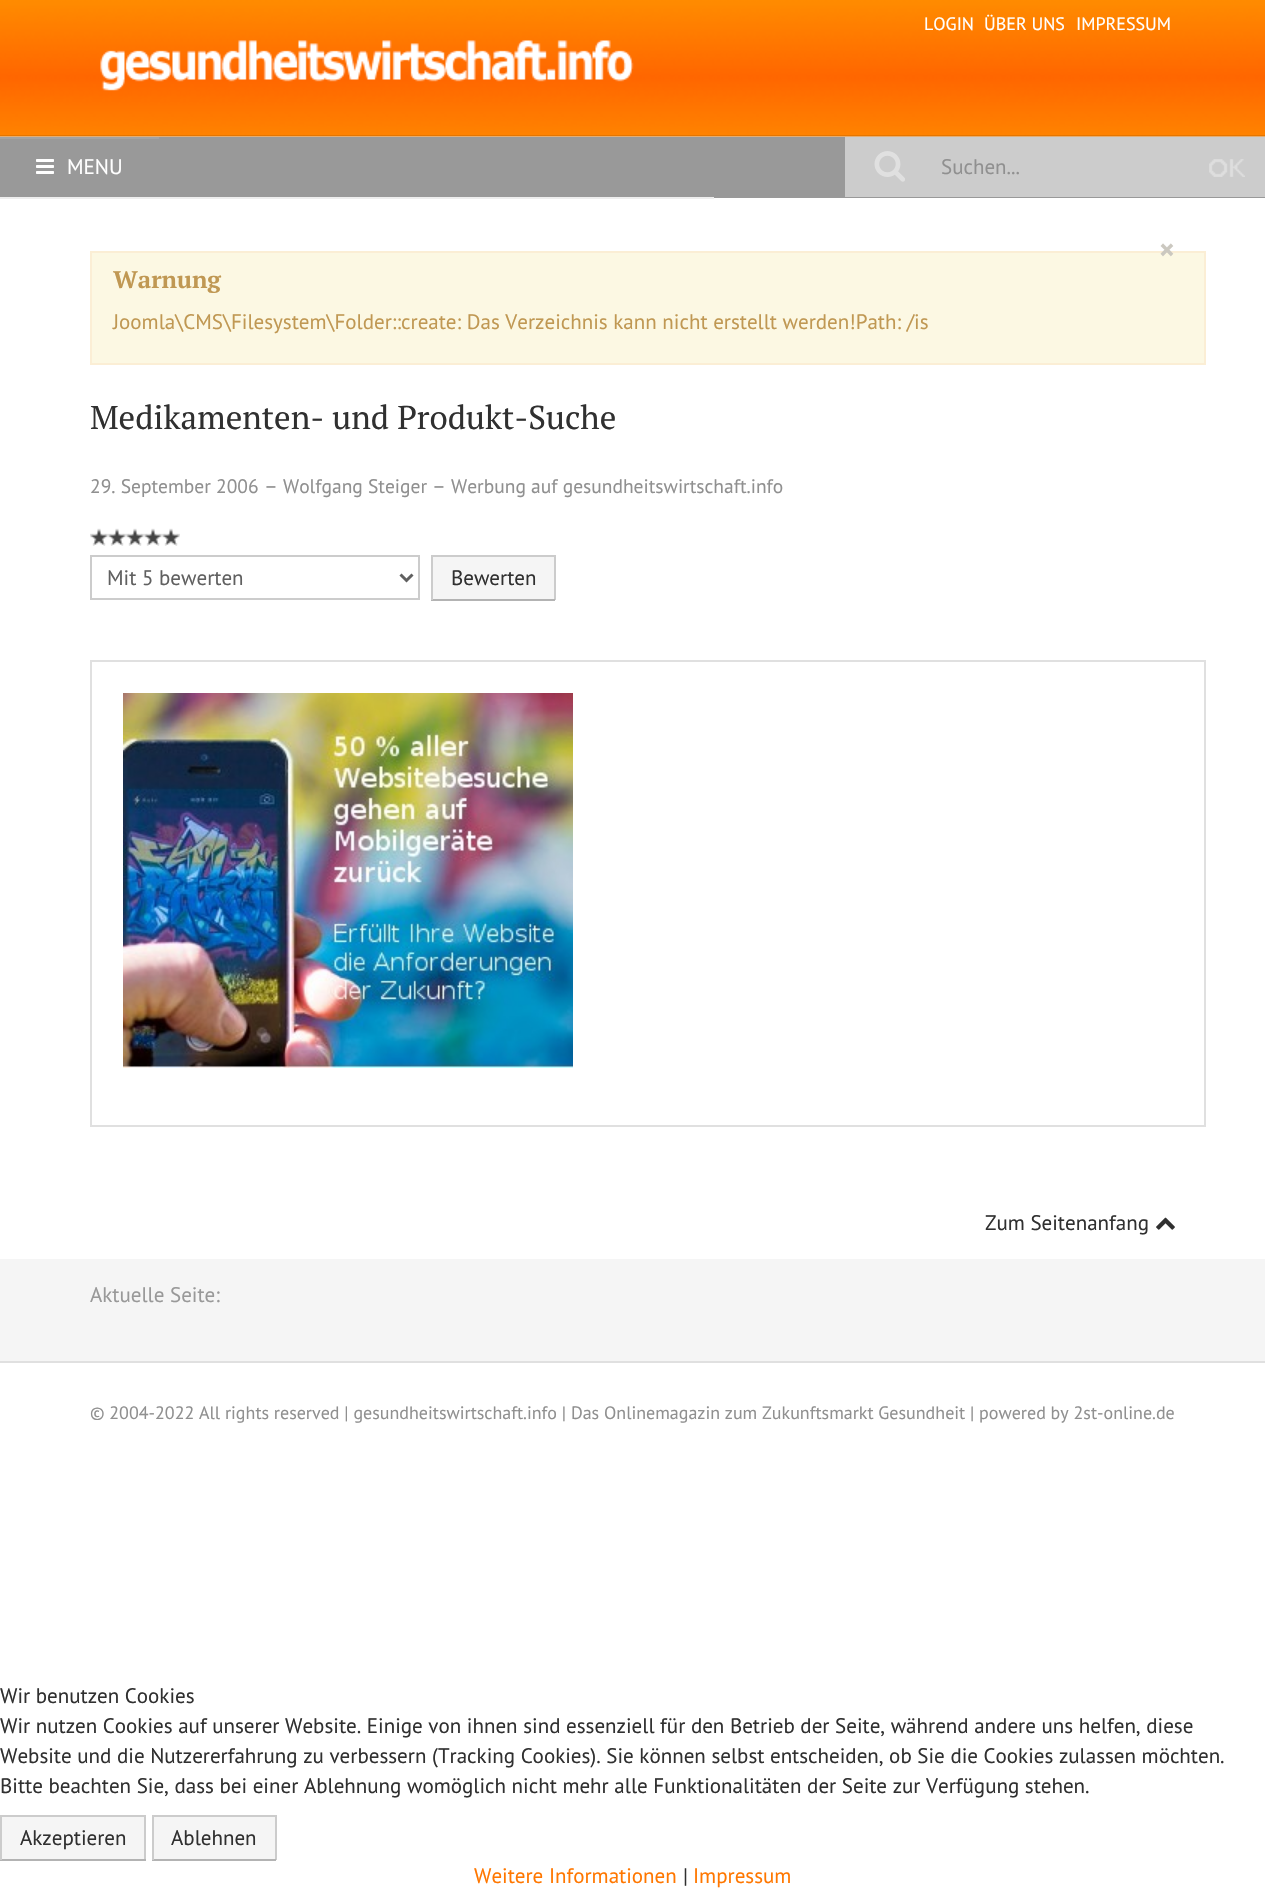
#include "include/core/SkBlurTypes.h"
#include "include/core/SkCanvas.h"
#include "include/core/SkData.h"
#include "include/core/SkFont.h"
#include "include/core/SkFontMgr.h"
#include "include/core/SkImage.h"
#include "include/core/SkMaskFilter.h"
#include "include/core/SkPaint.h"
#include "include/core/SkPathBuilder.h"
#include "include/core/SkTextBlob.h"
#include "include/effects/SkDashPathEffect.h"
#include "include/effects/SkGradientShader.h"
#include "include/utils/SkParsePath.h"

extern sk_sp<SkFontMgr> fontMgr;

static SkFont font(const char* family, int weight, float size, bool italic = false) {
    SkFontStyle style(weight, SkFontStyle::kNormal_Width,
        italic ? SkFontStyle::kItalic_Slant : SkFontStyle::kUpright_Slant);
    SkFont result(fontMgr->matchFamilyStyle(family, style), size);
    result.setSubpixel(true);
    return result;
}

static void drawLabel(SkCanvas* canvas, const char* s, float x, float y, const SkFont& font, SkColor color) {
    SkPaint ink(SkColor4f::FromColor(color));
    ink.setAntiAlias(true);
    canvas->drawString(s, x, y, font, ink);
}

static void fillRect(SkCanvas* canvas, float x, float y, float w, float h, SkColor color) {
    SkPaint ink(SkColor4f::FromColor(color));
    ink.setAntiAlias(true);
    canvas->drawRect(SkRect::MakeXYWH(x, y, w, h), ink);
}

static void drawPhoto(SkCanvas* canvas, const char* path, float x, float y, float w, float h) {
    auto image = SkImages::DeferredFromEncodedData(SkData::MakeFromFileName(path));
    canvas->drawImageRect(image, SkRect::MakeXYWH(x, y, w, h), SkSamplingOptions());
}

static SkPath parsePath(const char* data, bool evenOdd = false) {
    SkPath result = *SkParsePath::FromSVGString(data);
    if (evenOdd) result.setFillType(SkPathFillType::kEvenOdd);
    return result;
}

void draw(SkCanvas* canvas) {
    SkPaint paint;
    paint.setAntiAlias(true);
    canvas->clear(0xFFFFFFFF);
    drawPhoto(canvas, "assets/img1.png", 0, 0, 1265, 137);
    fillRect(canvas, 0, 135, 1265, 2, 0x1A000000);
    SkFont font1 = font("PT Sans", 400, 18);
    drawLabel(canvas, "LOGIN", 924, 30, font1, 0xFFFFFFFF);
    drawLabel(canvas, "ÜBER UNS", 984, 30, font1, 0xFFFFFFFF);
    drawLabel(canvas, "IMPRESSUM", 1076, 30, font1, 0xFFFFFFFF);
    drawPhoto(canvas, "assets/img2.png", 100, 40, 534, 51);
    fillRect(canvas, 159, 137, 1106, 61, 0xFF999999);
    fillRect(canvas, 0, 139, 159, 58, 0xFF999999);
    fillRect(canvas, 0, 137, 159, 2, 0xFFA3A3A3);
    drawPhoto(canvas, "assets/img3.png", 36, 159, 18, 15);
    SkFont font2 = font("PT Sans", 400, 21);
    drawLabel(canvas, "MENU", 67, 174, font2, 0xFFFFFFFF);
    fillRect(canvas, 0, 197, 714, 2, 0xFFEEEEEE);
    fillRect(canvas, 845, 137, 420, 60, 0xFFCCCCCC);
    drawPhoto(canvas, "assets/img4.png", 874, 151, 31, 31);
    drawLabel(canvas, "Suchen...", 941, 174, font2, 0xFF909090);
    drawPhoto(canvas, "assets/img5.png", 1209, 159, 36, 18);
    paint.setColor(0xFFFCF8E3);
    canvas->drawRect(SkRect::MakeXYWH(91, 252, 1114, 112), paint);
    paint.setStroke(true);
    paint.setStrokeWidth(2);
    paint.setColor(0xFFFBEED5);
    canvas->drawRect(SkRect::MakeXYWH(91, 252, 1114, 112), paint);
    SkFont font3 = font("PT Sans", 700, 30);
    drawLabel(canvas, "×", 1159, 260, font3, 0xFFCBC8C0);
    SkFont font4 = font("PT Serif", 700, 24);
    drawLabel(canvas, "Warnung", 113, 288, font4, 0xFFC09853);
    drawLabel(canvas, "Joomla\\CMS\\Filesystem\\Folder::create: Das Verzeichnis kann nicht erstellt werden!Path: /is", 113, 329, font2, 0xFFC09853);
    SkFont font5 = font("PT Serif", 400, 33);
    drawLabel(canvas, "Medikamenten- und Produkt-Suche", 90, 429, font5, 0xFF303030);
    SkFont font6 = font("PT Sans", 400, 19.5f);
    drawLabel(canvas, "29. September 2006", 90, 493, font6, 0xFF909090);
    drawLabel(canvas, "–", 264, 493, font2, 0xFF909090);
    drawLabel(canvas, "Wolfgang Steiger", 283, 493, font6, 0xFF909090);
    drawLabel(canvas, "–", 432, 493, font2, 0xFF909090);
    drawLabel(canvas, "Werbung auf gesundheitswirtschaft.info", 451, 493, font6, 0xFF909090);
    drawPhoto(canvas, "assets/img6.png", 90, 528, 18, 18);
    drawPhoto(canvas, "assets/img6.png", 108, 528, 18, 18);
    drawPhoto(canvas, "assets/img6.png", 126, 528, 18, 18);
    drawPhoto(canvas, "assets/img6.png", 144, 528, 18, 18);
    drawPhoto(canvas, "assets/img6.png", 162, 528, 18, 18);
    paint.setColor(0xFFCCCCCC);
    canvas->drawRect(SkRect::MakeXYWH(91, 556, 328, 43), paint);
    paint.setStrokeWidth(3);
    paint.setColor(0xFF606060);
    canvas->drawPath(parsePath("M400.5 574.5L406.5 580.5L412.5 574.5"), paint);
    drawLabel(canvas, "Mit 5 bewerten", 107, 585, font2, 0xFF606060);
    fillRect(canvas, 433, 557, 121, 42, 0xFFF5F5F5);
    fillRect(canvas, 431, 555, 124, 2, 0xFFCCCCCC);
    fillRect(canvas, 554, 555, 2, 45, 0xFFCCCCCC);
    fillRect(canvas, 431, 599, 124, 2, 0xFFB3B3B3);
    fillRect(canvas, 431, 555, 2, 45, 0xFFCCCCCC);
    drawLabel(canvas, "Bewerten", 451, 585, font2, 0xFF303030);
    paint.setStrokeWidth(2);
    paint.setColor(0xFFE0E0E0);
    canvas->drawRect(SkRect::MakeXYWH(91, 661, 1114, 465), paint);
    drawPhoto(canvas, "assets/img7.png", 123, 693, 450, 375);
    drawLabel(canvas, "Zum Seitenanfang", 985, 1230, font2, 0xFF303030);
    drawPhoto(canvas, "assets/img8.png", 1156, 1217, 19, 13);
    fillRect(canvas, 0, 1259, 1265, 102, 0xFFF5F5F5);
    drawLabel(canvas, "Aktuelle Seite:", 90, 1302, font2, 0xFF999999);
    fillRect(canvas, 0, 1361, 1265, 2, 0xFFE0E0E0);
    drawLabel(canvas, "© 2004-2022 All rights reserved | gesundheitswirtschaft.info | Das Onlinemagazin zum Zukunftsmarkt Gesundheit | powered by 2st-online.de", 90, 1419, font1, 0xFF909090);
    drawLabel(canvas, "Wir benutzen Cookies", 0, 1703, font2, 0xFF303030);
    drawLabel(canvas, "Wir nutzen Cookies auf unserer Website. Einige von ihnen sind essenziell für den Betrieb der Seite, während andere uns helfen, diese", 0, 1733, font2, 0xFF303030);
    drawLabel(canvas, "Website und die Nutzererfahrung zu verbessern (Tracking Cookies). Sie können selbst entscheiden, ob Sie die Cookies zulassen möchten.", 0, 1763, font2, 0xFF303030);
    drawLabel(canvas, "Bitte beachten Sie, dass bei einer Ablehnung womöglich nicht mehr alle Funktionalitäten der Seite zur Verfügung stehen.", 0, 1793, font2, 0xFF303030);
    fillRect(canvas, 2, 1817, 142, 42, 0xFFF5F5F5);
    fillRect(canvas, 0, 1815, 146, 2, 0xFFCCCCCC);
    fillRect(canvas, 144, 1815, 2, 45, 0xFFCCCCCC);
    fillRect(canvas, 0, 1859, 146, 2, 0xFFB3B3B3);
    fillRect(canvas, 0, 1815, 2, 45, 0xFFCCCCCC);
    drawLabel(canvas, "Akzeptieren", 20, 1845, font2, 0xFF303030);
    fillRect(canvas, 154, 1817, 121, 42, 0xFFF5F5F5);
    fillRect(canvas, 152, 1815, 124, 2, 0xFFCCCCCC);
    fillRect(canvas, 275, 1815, 2, 45, 0xFFCCCCCC);
    fillRect(canvas, 152, 1859, 124, 2, 0xFFB3B3B3);
    fillRect(canvas, 152, 1815, 2, 45, 0xFFCCCCCC);
    drawLabel(canvas, "Ablehnen", 171, 1845, font2, 0xFF303030);
    drawLabel(canvas, "Weitere Informationen", 474, 1883, font2, 0xFFFF7700);
    drawLabel(canvas, "|", 683, 1883, font2, 0xFF303030);
    drawLabel(canvas, "Impressum", 693, 1883, font2, 0xFFFF7700);
}
